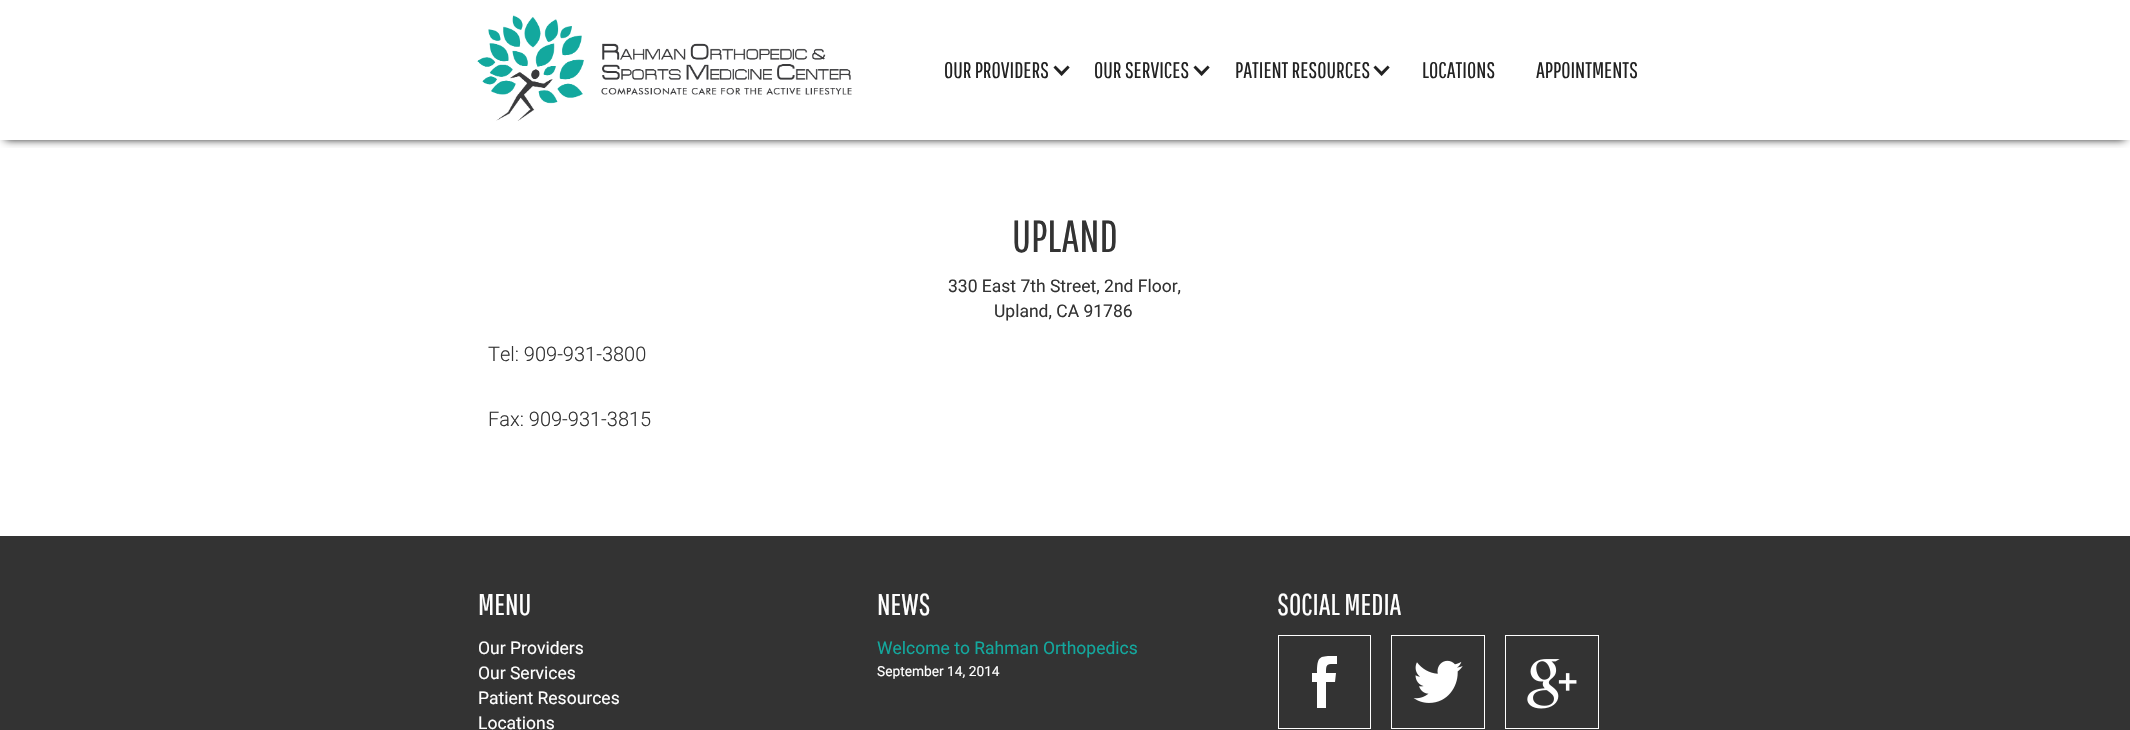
#include "include/core/SkBlurTypes.h"
#include "include/core/SkCanvas.h"
#include "include/core/SkData.h"
#include "include/core/SkFont.h"
#include "include/core/SkFontMgr.h"
#include "include/core/SkImage.h"
#include "include/core/SkMaskFilter.h"
#include "include/core/SkPaint.h"
#include "include/core/SkPathBuilder.h"
#include "include/core/SkTextBlob.h"
#include "include/effects/SkDashPathEffect.h"
#include "include/effects/SkGradientShader.h"
#include "include/utils/SkParsePath.h"

extern sk_sp<SkFontMgr> fontMgr;

static SkFont font(const char* family, int weight, float size, bool italic = false) {
    SkFontStyle style(weight, SkFontStyle::kNormal_Width,
        italic ? SkFontStyle::kItalic_Slant : SkFontStyle::kUpright_Slant);
    SkFont result(fontMgr->matchFamilyStyle(family, style), size);
    result.setSubpixel(true);
    return result;
}

static void drawLabel(SkCanvas* canvas, const char* s, float x, float y, const SkFont& font, SkColor color) {
    SkPaint ink(SkColor4f::FromColor(color));
    ink.setAntiAlias(true);
    canvas->drawString(s, x, y, font, ink);
}

static void fillRect(SkCanvas* canvas, float x, float y, float w, float h, SkColor color) {
    SkPaint ink(SkColor4f::FromColor(color));
    ink.setAntiAlias(true);
    canvas->drawRect(SkRect::MakeXYWH(x, y, w, h), ink);
}

static void drawPhoto(SkCanvas* canvas, const char* path, float x, float y, float w, float h) {
    auto image = SkImages::DeferredFromEncodedData(SkData::MakeFromFileName(path));
    canvas->drawImageRect(image, SkRect::MakeXYWH(x, y, w, h), SkSamplingOptions());
}

static SkPath parsePath(const char* data, bool evenOdd = false) {
    SkPath result = *SkParsePath::FromSVGString(data);
    if (evenOdd) result.setFillType(SkPathFillType::kEvenOdd);
    return result;
}

void draw(SkCanvas* canvas) {
    SkPaint paint;
    paint.setAntiAlias(true);
    canvas->clear(0xFFFFFFFF);
    canvas->save();
    canvas->clipRect(SkRect::MakeXYWH(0, 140, 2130, 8));
    paint.setColor(0xFF000000);
    paint.setMaskFilter(SkMaskFilter::MakeBlur(kNormal_SkBlurStyle, 4.5f));
    canvas->drawRect(SkRect::MakeXYWH(5, 6, 2120, 133), paint);
    paint.setMaskFilter(nullptr);
    canvas->restore();
    drawPhoto(canvas, "assets/img1.png", 477, 15, 375, 106);
    SkFont font1 = font("Pathway Gothic One", 400, 22.5f);
    drawLabel(canvas, "OUR PROVIDERS", 944, 78, font1, 0xFF222222);
    drawPhoto(canvas, "assets/img2.png", 1053, 65, 17, 11);
    drawLabel(canvas, "OUR SERVICES", 1094, 78, font1, 0xFF222222);
    drawPhoto(canvas, "assets/img2.png", 1193, 65, 17, 11);
    drawLabel(canvas, "PATIENT RESOURCES", 1235, 78, font1, 0xFF222222);
    drawPhoto(canvas, "assets/img2.png", 1373, 65, 17, 11);
    drawLabel(canvas, "LOCATIONS", 1422, 78, font1, 0xFF222222);
    drawLabel(canvas, "APPOINTMENTS", 1536, 78, font1, 0xFF222222);
    SkFont font2 = font("Pathway Gothic One", 400, 45);
    drawLabel(canvas, "UPLAND", 1012, 252, font2, 0xFF333333);
    SkFont font3 = font("Roboto", 400, 17.5f);
    drawLabel(canvas, "330 East 7th Street, 2nd Floor,", 948, 292, font3, 0xFF333333);
    drawLabel(canvas, "Upland, CA 91786", 994, 317, font3, 0xFF333333);
    SkFont font4 = font("Roboto", 300, 20);
    drawLabel(canvas, "Tel: 909-931-3800", 488, 361, font4, 0xFF333333);
    drawLabel(canvas, "Fax: 909-931-3815", 488, 426, font4, 0xFF333333);
    fillRect(canvas, 0, 536, 2130, 194, 0xFF333333);
    SkFont font5 = font("Pathway Gothic One", 400, 30);
    drawLabel(canvas, "MENU", 478, 615, font5, 0xFFFFFFFF);
    drawLabel(canvas, "Our Providers", 478, 654, font3, 0xFFFFFFFF);
    drawLabel(canvas, "Our Services", 478, 679, font3, 0xFFFFFFFF);
    drawLabel(canvas, "Patient Resources", 478, 704, font3, 0xFFFFFFFF);
    drawLabel(canvas, "Locations", 478, 729, font3, 0xFFFFFFFF);
    drawLabel(canvas, "NEWS", 877, 615, font5, 0xFFFFFFFF);
    drawLabel(canvas, "Welcome to Rahman Orthopedics", 877, 654, font3, 0xFF13A89E);
    SkFont font6 = font("Roboto", 400, 13.75f);
    drawLabel(canvas, "September 14, 2014", 877, 676, font6, 0xFFFFFFFF);
    drawLabel(canvas, "SOCIAL MEDIA", 1277, 615, font5, 0xFFFFFFFF);
    paint.setStroke(true);
    paint.setStrokeWidth(1);
    paint.setColor(0xFFFFFFFF);
    canvas->drawRect(SkRect::MakeXYWH(1278.5f, 635.5f, 92, 93), paint);
    paint.setStroke(false);
    canvas->drawPath(parsePath("M1317 708V682H1312V673H1317C1317 655 1320 656 1337 656V664C1327 664 1326 663 1326 673H1336L1335 682H1326V708Z"), paint);
    paint.setStroke(true);
    canvas->drawRect(SkRect::MakeXYWH(1391.5f, 635.5f, 93, 93), paint);
    drawPhoto(canvas, "assets/img3.png", 1413, 660, 50, 43);
    canvas->drawRect(SkRect::MakeXYWH(1505.5f, 635.5f, 93, 93), paint);
    drawPhoto(canvas, "assets/img4.png", 1527, 659, 50, 50);
}
